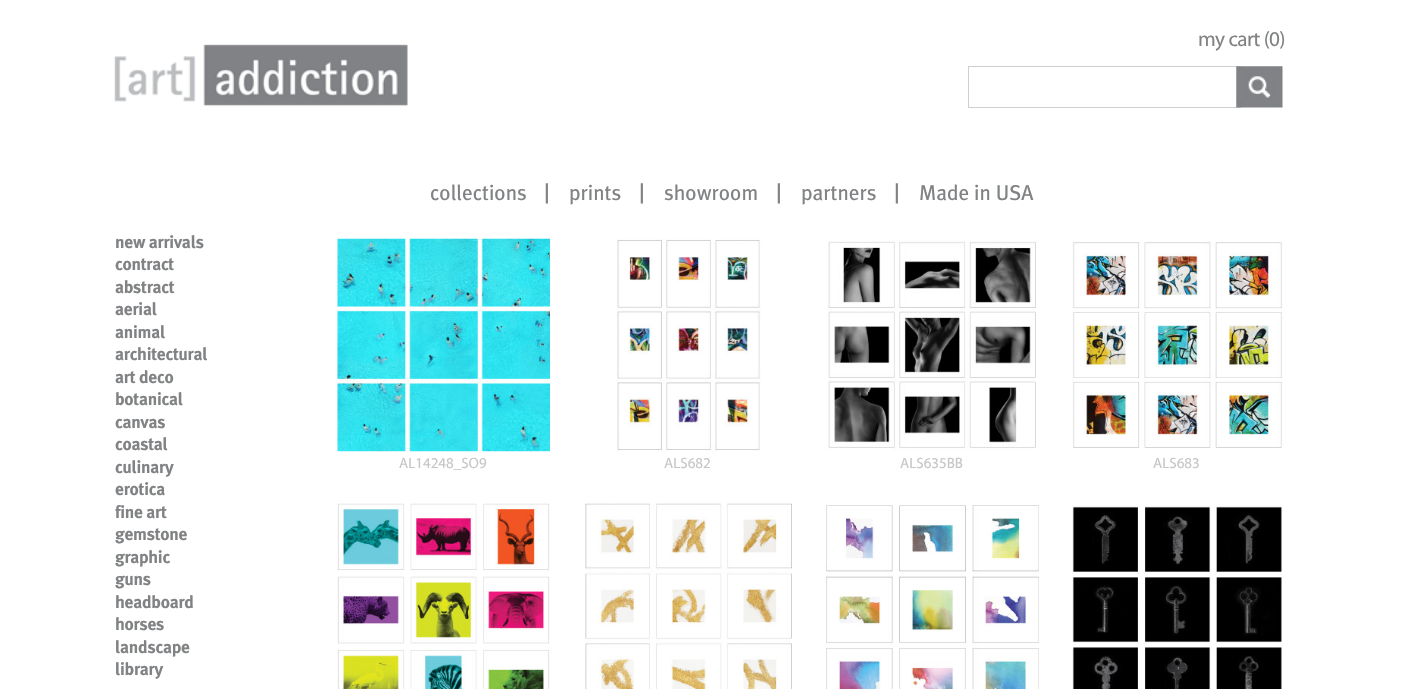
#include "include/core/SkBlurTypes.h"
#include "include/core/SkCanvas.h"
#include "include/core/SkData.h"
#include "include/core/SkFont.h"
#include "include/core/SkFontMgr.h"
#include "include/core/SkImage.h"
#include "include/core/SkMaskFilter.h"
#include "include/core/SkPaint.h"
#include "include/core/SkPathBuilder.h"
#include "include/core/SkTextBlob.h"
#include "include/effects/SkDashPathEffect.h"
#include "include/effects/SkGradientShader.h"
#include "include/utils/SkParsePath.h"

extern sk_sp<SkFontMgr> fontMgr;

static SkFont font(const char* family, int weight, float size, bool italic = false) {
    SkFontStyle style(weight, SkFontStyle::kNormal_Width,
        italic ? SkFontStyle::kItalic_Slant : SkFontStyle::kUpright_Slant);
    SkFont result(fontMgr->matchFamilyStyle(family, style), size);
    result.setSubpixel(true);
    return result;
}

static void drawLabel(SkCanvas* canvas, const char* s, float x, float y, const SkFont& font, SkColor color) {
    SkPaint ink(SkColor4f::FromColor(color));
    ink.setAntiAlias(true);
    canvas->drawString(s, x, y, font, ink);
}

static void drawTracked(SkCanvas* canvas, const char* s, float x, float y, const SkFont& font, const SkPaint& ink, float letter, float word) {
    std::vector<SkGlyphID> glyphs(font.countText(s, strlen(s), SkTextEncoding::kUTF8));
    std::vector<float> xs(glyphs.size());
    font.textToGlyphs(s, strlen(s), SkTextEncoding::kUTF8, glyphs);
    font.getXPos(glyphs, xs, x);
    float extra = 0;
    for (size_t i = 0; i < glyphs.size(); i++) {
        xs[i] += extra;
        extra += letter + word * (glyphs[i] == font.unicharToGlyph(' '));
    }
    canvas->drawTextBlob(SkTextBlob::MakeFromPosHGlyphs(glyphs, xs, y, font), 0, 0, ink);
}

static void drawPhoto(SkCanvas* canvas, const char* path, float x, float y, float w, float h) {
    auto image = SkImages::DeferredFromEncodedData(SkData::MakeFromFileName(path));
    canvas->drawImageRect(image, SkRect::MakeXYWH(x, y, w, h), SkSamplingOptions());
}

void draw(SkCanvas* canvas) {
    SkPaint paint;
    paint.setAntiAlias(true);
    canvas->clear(0xFFFFFFFF);
    drawPhoto(canvas, "assets/img1.png", 114, 44, 294, 63);
    SkFont font1 = font("myriad", 500, 21.25f);
    paint.setColor(0xFF808284);
    drawTracked(canvas, "my cart (0)", 1198, 46, font1, paint, -0.6f, 0);
    paint.setStroke(true);
    paint.setStrokeWidth(1);
    paint.setColor(0xFFCCD0D3);
    canvas->drawRect(SkRect::MakeXYWH(968.5f, 66.5f, 272, 41), paint);
    drawPhoto(canvas, "assets/img2.png", 1236, 66, 47, 42);
    SkFont font2 = font("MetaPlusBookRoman", 400, 21.25f);
    drawLabel(canvas, "collections", 430, 200, font2, 0xFF808284);
    SkFont font3 = font("MetaPlusBookRoman", 400, 26);
    drawLabel(canvas, "|", 544, 203, font3, 0xFF808284);
    drawLabel(canvas, "prints", 569, 200, font2, 0xFF808284);
    drawLabel(canvas, "|", 639, 203, font3, 0xFF808284);
    drawLabel(canvas, "showroom", 664, 200, font2, 0xFF808284);
    drawLabel(canvas, "|", 776, 203, font3, 0xFF808284);
    drawLabel(canvas, "partners", 801, 200, font2, 0xFF808284);
    drawLabel(canvas, "|", 894, 203, font3, 0xFF808284);
    drawLabel(canvas, "Made in USA", 919, 200, font2, 0xFF808284);
    SkFont font4 = font("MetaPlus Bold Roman", 700, 17.5f);
    paint.setStroke(false);
    paint.setColor(0xFF808284);
    drawTracked(canvas, "new arrivals", 115, 248, font4, paint, -0.25f, 0);
    drawTracked(canvas, "contract", 115, 270, font4, paint, -0.25f, 0);
    drawTracked(canvas, "abstract", 115, 293, font4, paint, -0.25f, 0);
    drawTracked(canvas, "aerial", 115, 315, font4, paint, -0.25f, 0);
    drawTracked(canvas, "animal", 115, 338, font4, paint, -0.25f, 0);
    drawTracked(canvas, "architectural", 115, 360, font4, paint, -0.25f, 0);
    drawTracked(canvas, "art deco", 115, 383, font4, paint, -0.25f, 0);
    drawTracked(canvas, "botanical", 115, 405, font4, paint, -0.25f, 0);
    drawTracked(canvas, "canvas", 115, 428, font4, paint, -0.25f, 0);
    drawTracked(canvas, "coastal", 115, 450, font4, paint, -0.25f, 0);
    drawTracked(canvas, "culinary", 115, 473, font4, paint, -0.25f, 0);
    drawTracked(canvas, "erotica", 115, 495, font4, paint, -0.25f, 0);
    drawTracked(canvas, "fine art", 115, 518, font4, paint, -0.25f, 0);
    drawTracked(canvas, "gemstone", 115, 540, font4, paint, -0.25f, 0);
    drawTracked(canvas, "graphic", 115, 563, font4, paint, -0.25f, 0);
    drawTracked(canvas, "guns", 115, 585, font4, paint, -0.25f, 0);
    drawTracked(canvas, "headboard", 115, 608, font4, paint, -0.25f, 0);
    drawTracked(canvas, "horses", 115, 630, font4, paint, -0.25f, 0);
    drawTracked(canvas, "landscape", 115, 653, font4, paint, -0.25f, 0);
    drawTracked(canvas, "library", 115, 675, font4, paint, -0.25f, 0);
    drawPhoto(canvas, "assets/img3.png", 337, 238, 213, 214);
    SkFont font5 = font("myriad", 500, 15);
    drawLabel(canvas, "AL14248_SO9", 399, 468, font5, 0xFFC6C6C6);
    drawPhoto(canvas, "assets/img4.png", 616, 239, 145, 212);
    drawLabel(canvas, "ALS682", 664, 468, font5, 0xFFC6C6C6);
    drawPhoto(canvas, "assets/img5.png", 827, 240, 209, 211);
    drawLabel(canvas, "ALS635BB", 900, 468, font5, 0xFFC6C6C6);
    drawPhoto(canvas, "assets/img6.png", 1072, 241, 211, 208);
    drawLabel(canvas, "ALS683", 1153, 468, font5, 0xFFC6C6C6);
    drawPhoto(canvas, "assets/img7.png", 337, 503, 213, 186);
    drawPhoto(canvas, "assets/img8.png", 585, 503, 207, 186);
    drawPhoto(canvas, "assets/img9.png", 826, 505, 213, 184);
    drawPhoto(canvas, "assets/img10.png", 1072, 506, 211, 183);
}
